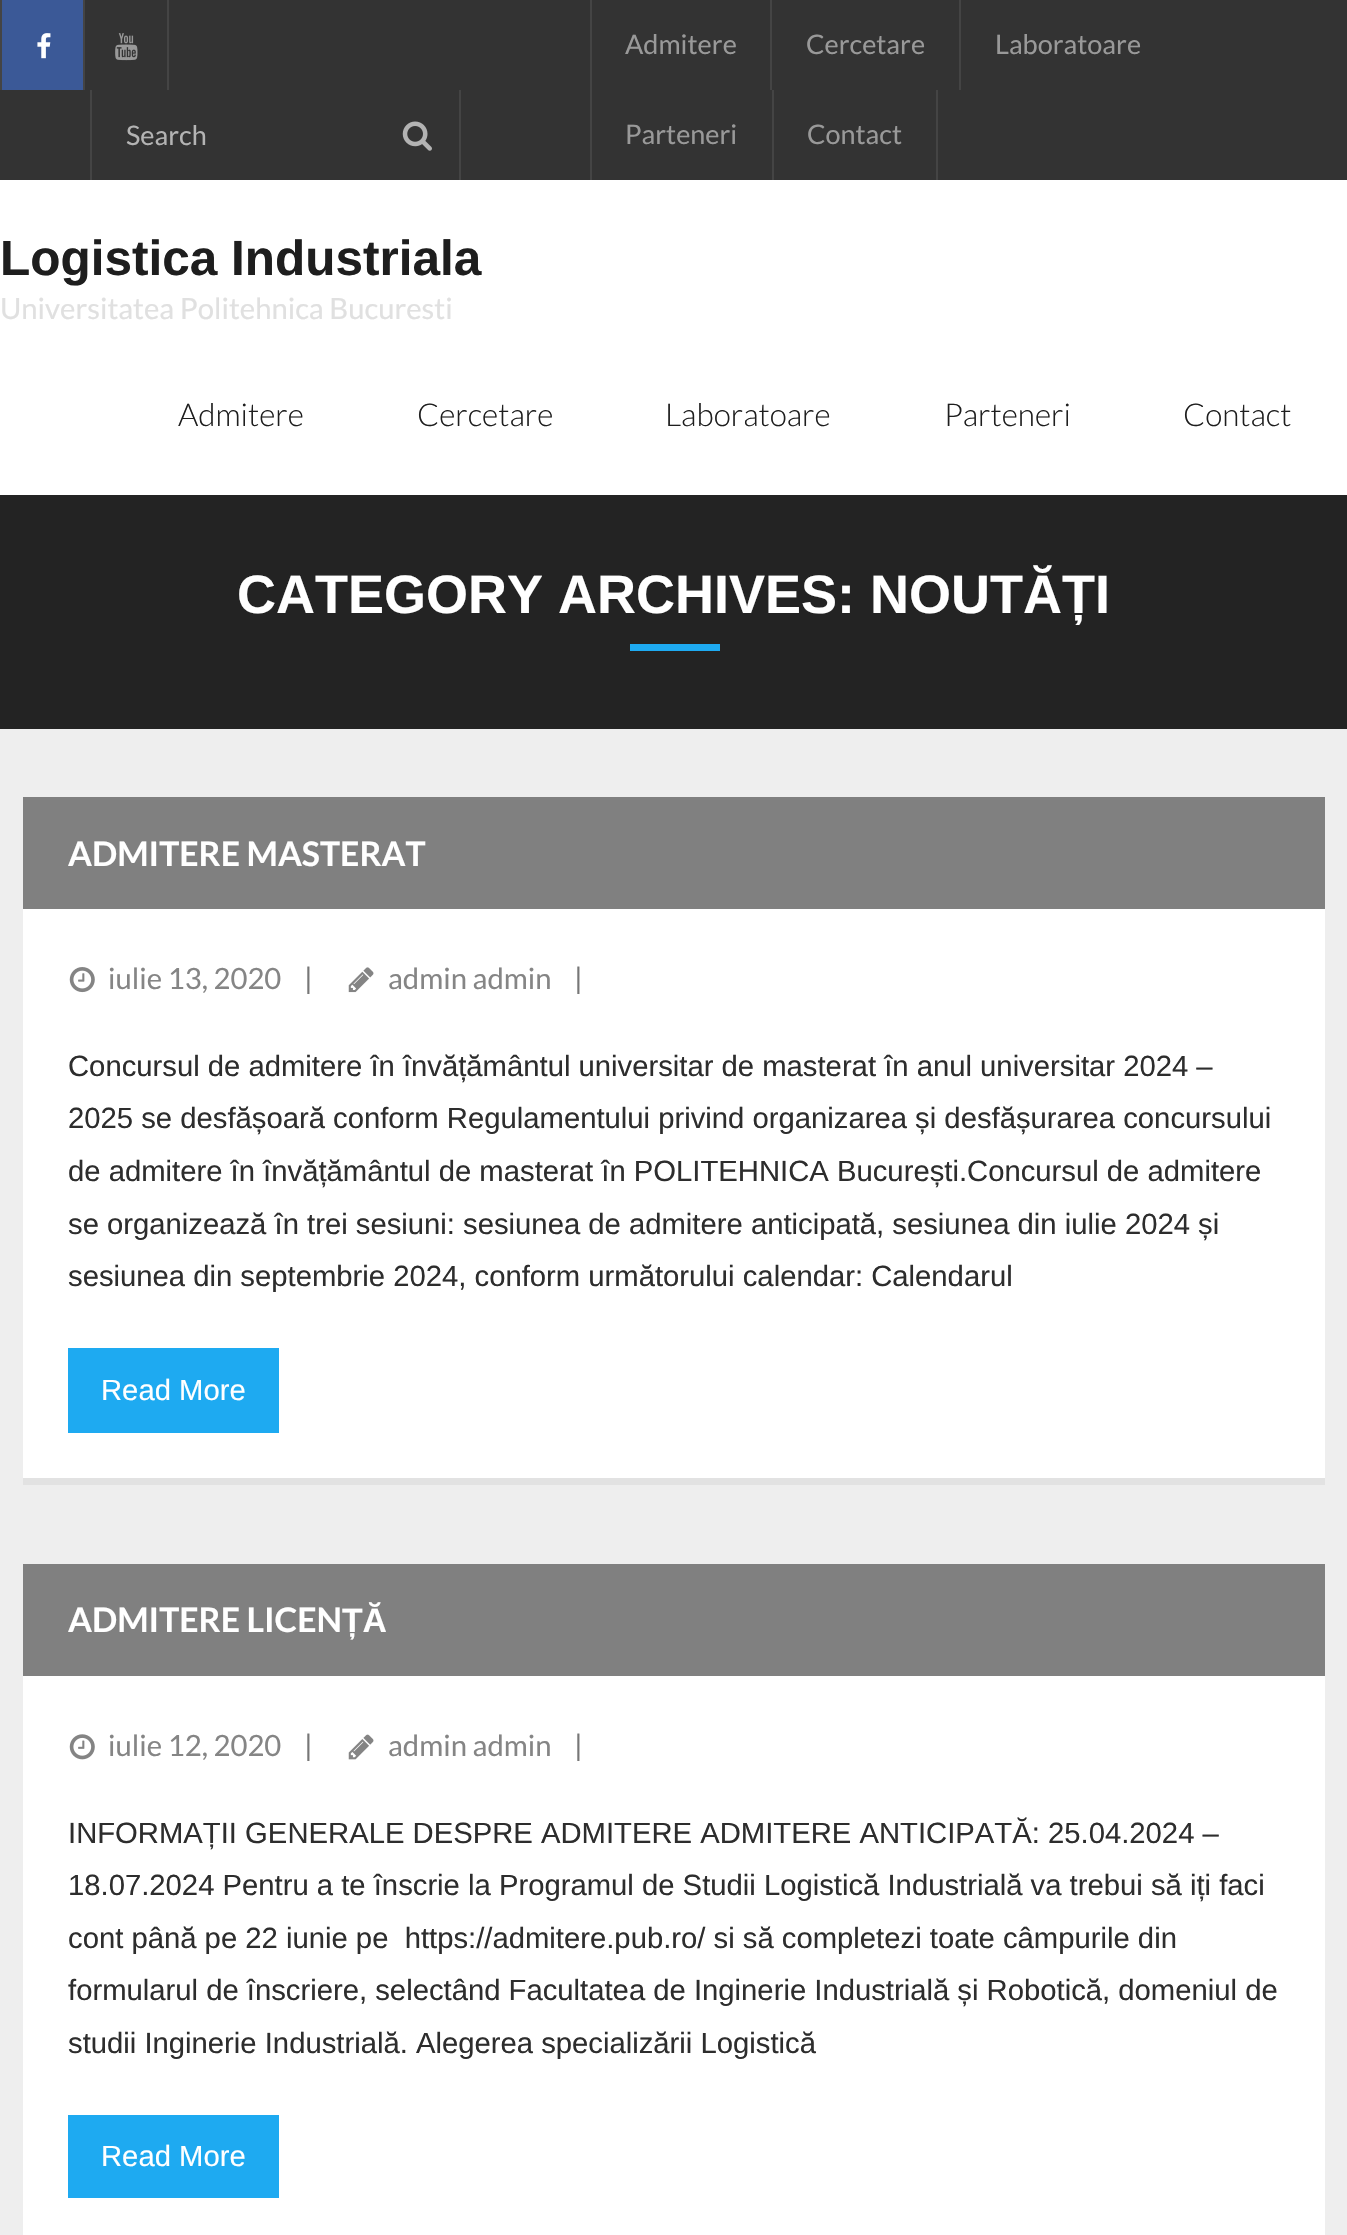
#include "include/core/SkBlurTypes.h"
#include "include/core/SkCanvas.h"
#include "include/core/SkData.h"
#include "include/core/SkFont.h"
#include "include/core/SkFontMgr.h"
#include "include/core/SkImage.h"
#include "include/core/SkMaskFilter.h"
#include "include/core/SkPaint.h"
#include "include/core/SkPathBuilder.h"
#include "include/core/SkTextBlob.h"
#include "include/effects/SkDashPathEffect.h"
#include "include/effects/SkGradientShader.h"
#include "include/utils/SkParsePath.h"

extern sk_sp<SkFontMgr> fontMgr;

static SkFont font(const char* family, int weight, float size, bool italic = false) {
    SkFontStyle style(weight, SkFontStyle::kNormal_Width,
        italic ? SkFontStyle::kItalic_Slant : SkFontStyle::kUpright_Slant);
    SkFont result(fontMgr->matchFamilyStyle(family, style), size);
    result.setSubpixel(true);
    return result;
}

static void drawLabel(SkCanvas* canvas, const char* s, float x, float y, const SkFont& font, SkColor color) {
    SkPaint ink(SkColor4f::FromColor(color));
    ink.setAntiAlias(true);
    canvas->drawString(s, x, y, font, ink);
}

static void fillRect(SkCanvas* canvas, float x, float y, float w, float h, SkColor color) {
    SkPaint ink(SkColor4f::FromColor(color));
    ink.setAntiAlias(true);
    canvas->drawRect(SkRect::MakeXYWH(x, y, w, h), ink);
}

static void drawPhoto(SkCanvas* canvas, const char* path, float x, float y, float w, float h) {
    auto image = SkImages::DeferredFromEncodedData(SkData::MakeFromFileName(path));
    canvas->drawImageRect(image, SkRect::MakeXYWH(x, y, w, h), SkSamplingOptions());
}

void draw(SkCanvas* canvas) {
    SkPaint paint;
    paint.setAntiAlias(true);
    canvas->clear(0xFFEEEEEE);
    fillRect(canvas, 0, 0, 1347, 180, 0xFF333333);
    fillRect(canvas, 2, 0, 81, 90, 0xFF3B5997);
    fillRect(canvas, 0, 0, 2, 90, 0xFF444444);
    drawPhoto(canvas, "assets/img1.png", 37, 33, 14, 26);
    fillRect(canvas, 167, 0, 2, 90, 0xFF444444);
    fillRect(canvas, 83, 0, 2, 90, 0xFF444444);
    drawPhoto(canvas, "assets/img2.png", 115, 33, 23, 28);
    fillRect(canvas, 590, 0, 2, 180, 0xFF444444);
    SkFont font1 = font("Lato", 400, 27);
    drawLabel(canvas, "Admitere", 625, 54, font1, 0xFF999999);
    fillRect(canvas, 770, 0, 2, 90, 0xFF444444);
    drawLabel(canvas, "Cercetare", 806, 54, font1, 0xFF999999);
    fillRect(canvas, 959, 0, 2, 90, 0xFF444444);
    drawLabel(canvas, "Laboratoare", 995, 54, font1, 0xFF999999);
    drawLabel(canvas, "Parteneri", 625, 144, font1, 0xFF999999);
    fillRect(canvas, 936, 90, 2, 90, 0xFF444444);
    fillRect(canvas, 772, 90, 2, 90, 0xFF444444);
    drawLabel(canvas, "Contact", 807, 144, font1, 0xFF999999);
    fillRect(canvas, 459, 90, 2, 90, 0xFF444444);
    fillRect(canvas, 90, 90, 2, 90, 0xFF444444);
    drawLabel(canvas, "Search", 126, 145, font1, 0xFFB3B3B3);
    drawPhoto(canvas, "assets/img3.png", 402, 121, 30, 30);
    fillRect(canvas, 0, 180, 1347, 315, 0xFFFFFFFF);
    SkFont font2 = font("Liberation Sans", 700, 49.5f);
    drawLabel(canvas, "Logistica Industriala", 0, 275, font2, 0xFF1E1E1E);
    SkFont font3 = font("Lato", 400, 29.25f);
    drawLabel(canvas, "Universitatea Politehnica Bucuresti", 0, 319, font3, 0xFFE0E0E0);
    SkFont font4 = font("Lato", 300, 31.5f);
    drawLabel(canvas, "Admitere", 178, 426, font4, 0xFF1E1E1E);
    drawLabel(canvas, "Cercetare", 417, 426, font4, 0xFF1E1E1E);
    drawLabel(canvas, "Laboratoare", 665, 426, font4, 0xFF1E1E1E);
    drawLabel(canvas, "Parteneri", 944, 426, font4, 0xFF1E1E1E);
    drawLabel(canvas, "Contact", 1183, 426, font4, 0xFF1E1E1E);
    fillRect(canvas, 0, 495, 1347, 234, 0xFF232323);
    SkFont font5 = font("Liberation Sans", 700, 54);
    drawLabel(canvas, "CATEGORY ARCHIVES: NOUTĂȚI", 237, 613, font5, 0xFFFFFFFF);
    fillRect(canvas, 630, 644, 90, 7, 0xFF1EAAF1);
    fillRect(canvas, 23, 909, 1302, 569, 0xFFFFFFFF);
    fillRect(canvas, 23, 1478, 1302, 7, 0xFFE2E2E2);
    fillRect(canvas, 23, 797, 1302, 112, 0xFF808080);
    SkFont font6 = font("Lato", 700, 33.75f);
    drawLabel(canvas, "ADMITERE MASTERAT", 68, 866, font6, 0xFFFFFFFF);
    drawPhoto(canvas, "assets/img4.png", 69, 967, 26, 26);
    drawLabel(canvas, "iulie 13, 2020", 108, 989, font3, 0xFF858585);
    drawLabel(canvas, "|", 304, 989, font3, 0xFF777777);
    drawPhoto(canvas, "assets/img5.png", 348, 967, 26, 26);
    drawLabel(canvas, "admin admin", 388, 989, font3, 0xFF858585);
    drawLabel(canvas, "|", 574, 989, font3, 0xFF777777);
    SkFont font7 = font("Liberation Sans", 400, 29.25f);
    drawLabel(canvas, "Concursul de admitere în învățământul universitar de masterat în anul universitar 2024 –", 68, 1076, font7, 0xFF2D2D2D);
    drawLabel(canvas, "2025 se desfășoară conform Regulamentului privind organizarea și desfășurarea concursului", 68, 1128, font7, 0xFF2D2D2D);
    drawLabel(canvas, "de admitere în învățământul de masterat în POLITEHNICA București.Concursul de admitere", 68, 1181, font7, 0xFF2D2D2D);
    drawLabel(canvas, "se organizează în trei sesiuni: sesiunea de admitere anticipată, sesiunea din iulie 2024 și", 68, 1234, font7, 0xFF2D2D2D);
    drawLabel(canvas, "sesiunea din septembrie 2024, conform următorului calendar: Calendarul", 68, 1286, font7, 0xFF2D2D2D);
    fillRect(canvas, 68, 1348, 211, 85, 0xFF1EAAF1);
    drawLabel(canvas, "Read More", 101, 1400, font7, 0xFFFFFFFF);
    fillRect(canvas, 23, 1676, 1302, 559, 0xFFFFFFFF);
    fillRect(canvas, 23, 1564, 1302, 112, 0xFF808080);
    drawLabel(canvas, "ADMITERE LICEN", 68, 1632, font6, 0xFFFFFFFF);
    SkFont font8 = font("Liberation Sans", 700, 33.75f);
    drawLabel(canvas, "ȚĂ", 342, 1632, font8, 0xFFFFFFFF);
    drawPhoto(canvas, "assets/img6.png", 69, 1734, 26, 26);
    drawLabel(canvas, "iulie 12, 2020", 108, 1756, font3, 0xFF858585);
    drawLabel(canvas, "|", 304, 1756, font3, 0xFF777777);
    drawPhoto(canvas, "assets/img7.png", 348, 1734, 26, 26);
    drawLabel(canvas, "admin admin", 388, 1756, font3, 0xFF858585);
    drawLabel(canvas, "|", 574, 1756, font3, 0xFF777777);
    drawLabel(canvas, "INFORMAȚII GENERALE DESPRE ADMITERE ADMITERE ANTICIPATĂ: 25.04.2024 –", 68, 1843, font7, 0xFF2D2D2D);
    drawLabel(canvas, "18.07.2024 Pentru a te înscrie la Programul de Studii Logistică Industrială va trebui să iți faci", 68, 1895, font7, 0xFF2D2D2D);
    drawLabel(canvas, "cont până pe 22 iunie pe  https://admitere.pub.ro/ si să completezi toate câmpurile din", 68, 1948, font7, 0xFF2D2D2D);
    drawLabel(canvas, "formularul de înscriere, selectând Facultatea de Inginerie Industrială și Robotică, domeniul de", 68, 2000, font7, 0xFF2D2D2D);
    drawLabel(canvas, "studii Inginerie Industrială. Alegerea specializării Logistică", 68, 2053, font7, 0xFF2D2D2D);
    fillRect(canvas, 68, 2115, 211, 83, 0xFF1EAAF1);
    drawLabel(canvas, "Read More", 101, 2166, font7, 0xFFFFFFFF);
}
